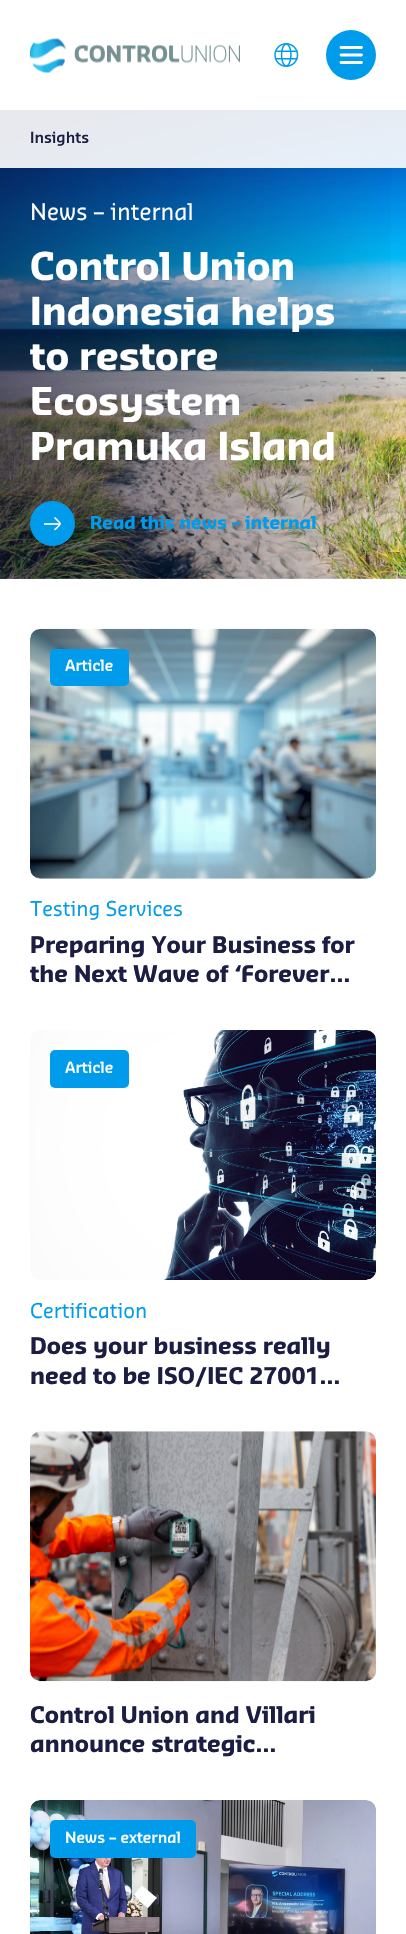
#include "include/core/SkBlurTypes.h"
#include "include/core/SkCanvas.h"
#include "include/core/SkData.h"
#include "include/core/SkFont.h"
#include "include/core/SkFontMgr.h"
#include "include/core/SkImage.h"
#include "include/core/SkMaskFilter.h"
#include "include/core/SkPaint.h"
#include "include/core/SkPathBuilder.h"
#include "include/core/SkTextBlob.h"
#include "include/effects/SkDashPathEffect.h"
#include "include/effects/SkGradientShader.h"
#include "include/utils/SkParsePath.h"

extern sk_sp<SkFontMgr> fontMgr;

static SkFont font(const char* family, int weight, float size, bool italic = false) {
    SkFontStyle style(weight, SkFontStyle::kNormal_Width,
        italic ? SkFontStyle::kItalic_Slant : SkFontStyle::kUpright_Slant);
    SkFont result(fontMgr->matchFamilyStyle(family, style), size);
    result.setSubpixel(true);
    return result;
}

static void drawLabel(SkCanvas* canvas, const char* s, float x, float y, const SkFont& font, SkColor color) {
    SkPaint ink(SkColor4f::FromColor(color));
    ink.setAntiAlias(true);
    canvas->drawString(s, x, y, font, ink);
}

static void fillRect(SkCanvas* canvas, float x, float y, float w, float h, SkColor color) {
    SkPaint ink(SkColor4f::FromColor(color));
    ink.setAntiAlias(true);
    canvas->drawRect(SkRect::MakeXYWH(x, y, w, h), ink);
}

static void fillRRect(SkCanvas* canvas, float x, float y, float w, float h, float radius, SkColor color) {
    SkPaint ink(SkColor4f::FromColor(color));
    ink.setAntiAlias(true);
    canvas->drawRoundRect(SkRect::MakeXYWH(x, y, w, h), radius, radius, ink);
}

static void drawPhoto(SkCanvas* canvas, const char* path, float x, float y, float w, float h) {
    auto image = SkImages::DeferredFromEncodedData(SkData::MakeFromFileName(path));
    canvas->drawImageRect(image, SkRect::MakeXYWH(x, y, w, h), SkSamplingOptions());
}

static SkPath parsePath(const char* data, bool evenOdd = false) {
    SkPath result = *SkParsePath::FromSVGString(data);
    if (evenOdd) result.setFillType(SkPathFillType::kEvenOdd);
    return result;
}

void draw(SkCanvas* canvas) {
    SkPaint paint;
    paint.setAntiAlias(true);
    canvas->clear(0xFFFFFFFF);
    drawPhoto(canvas, "assets/img1.png", 30, 38, 210, 35);
    drawPhoto(canvas, "assets/img2.png", 274, 43, 25, 24);
    paint.setColor(0xFF009CEB);
    canvas->drawCircle(351, 55, 25, paint);
    paint.setStroke(true);
    paint.setStrokeWidth(2.8f);
    paint.setStrokeCap(SkPaint::kRound_Cap);
    paint.setStrokeJoin(SkPaint::kRound_Join);
    paint.setColor(0xFFFFFFFF);
    canvas->drawPath(parsePath("M341 55H361.5M341 47.5H361.5M341 62.5H361.5"), paint);
    drawPhoto(canvas, "assets/img3.png", 0, 110, 406, 469);
    paint.setStroke(false);
    {
        const SkColor colors[] = {0x99070A2E, 0x00070A2E};
        const float stops[] = {0, 1};
        const SkPoint ends[] = {{0, 344}, {406, 344}};
        paint.setShader(SkGradientShader::MakeLinear(ends, colors, stops, 2, SkTileMode::kClamp));
        paint.setAlpha(255);
    }
    canvas->drawRect(SkRect::MakeXYWH(0, 110, 391, 469), paint);
    fillRect(canvas, 0, 110, 406, 58, 0xE6FFFFFF);
    SkFont font1 = font("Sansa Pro", 600, 15);
    drawLabel(canvas, "Insights", 30, 143, font1, 0xFF1B1E42);
    SkFont font2 = font("Sansa Pro", 400, 22.5f);
    drawLabel(canvas, "News – internal", 30, 220, font2, 0xFFFFFFFF);
    SkFont font3 = font("Sansa Pro", 700, 37.5f);
    drawLabel(canvas, "Control Union", 30, 280, font3, 0xFFFFFFFF);
    drawLabel(canvas, "Indonesia helps", 30, 325, font3, 0xFFFFFFFF);
    drawLabel(canvas, "to restore", 30, 370, font3, 0xFFFFFFFF);
    drawLabel(canvas, "Ecosystem", 30, 415, font3, 0xFFFFFFFF);
    drawLabel(canvas, "Pramuka Island", 30, 460, font3, 0xFFFFFFFF);
    paint.setShader(nullptr);
    paint.setColor(0xFF009CEB);
    canvas->drawCircle(52.5f, 523.5f, 22, paint);
    paint.setStroke(true);
    paint.setStrokeWidth(1);
    paint.setStrokeCap(SkPaint::kButt_Cap);
    paint.setStrokeJoin(SkPaint::kMiter_Join);
    canvas->drawCircle(52.5f, 523.5f, 22, paint);
    fillRect(canvas, 44, 523, 16, 2, 0xFFCCEBFB);
    paint.setStrokeWidth(1.6f);
    paint.setColor(0xFFFFFFFF);
    canvas->drawPath(parsePath("M54.5 530C62 523 62 524.5 54.5 517.5"), paint);
    SkFont font4 = font("Sansa Pro", 700, 17.5f);
    drawLabel(canvas, "Read this news – internal", 90, 529, font4, 0xFF009CEB);
    drawPhoto(canvas, "assets/img4.png", 30, 628, 346, 251);
    fillRRect(canvas, 50, 649, 79, 37, 5, 0xFF009CEB);
    drawLabel(canvas, "Article", 65, 671, font1, 0xFFFFFFFF);
    SkFont font5 = font("Sansa Pro", 400, 20);
    drawLabel(canvas, "Testing Services", 30, 916, font5, 0xFF009CEB);
    SkFont font6 = font("Sansa Pro", 700, 22.5f);
    drawLabel(canvas, "Preparing Your Business for", 30, 953, font6, 0xFF1B1E42);
    drawLabel(canvas, "the Next Wave of ‘Forever…", 30, 982, font6, 0xFF1B1E42);
    drawPhoto(canvas, "assets/img5.png", 30, 1030, 346, 250);
    fillRRect(canvas, 50, 1050, 79, 38, 5, 0xFF009CEB);
    drawLabel(canvas, "Article", 65, 1073, font1, 0xFFFFFFFF);
    drawLabel(canvas, "Certification", 30, 1318, font5, 0xFF009CEB);
    drawLabel(canvas, "Does your business really", 30, 1354, font6, 0xFF1B1E42);
    drawLabel(canvas, "need to be ISO/IEC 27001…", 30, 1384, font6, 0xFF1B1E42);
    drawPhoto(canvas, "assets/img6.png", 30, 1431, 346, 251);
    drawLabel(canvas, "Control Union and Villari", 30, 1723, font6, 0xFF1B1E42);
    drawLabel(canvas, "announce strategic…", 30, 1752, font6, 0xFF1B1E42);
    drawPhoto(canvas, "assets/img7.png", 30, 1800, 346, 134);
    fillRRect(canvas, 50, 1820, 146, 38, 5, 0xFF009CEB);
    drawLabel(canvas, "News – external", 65, 1843, font1, 0xFFFFFFFF);
}
